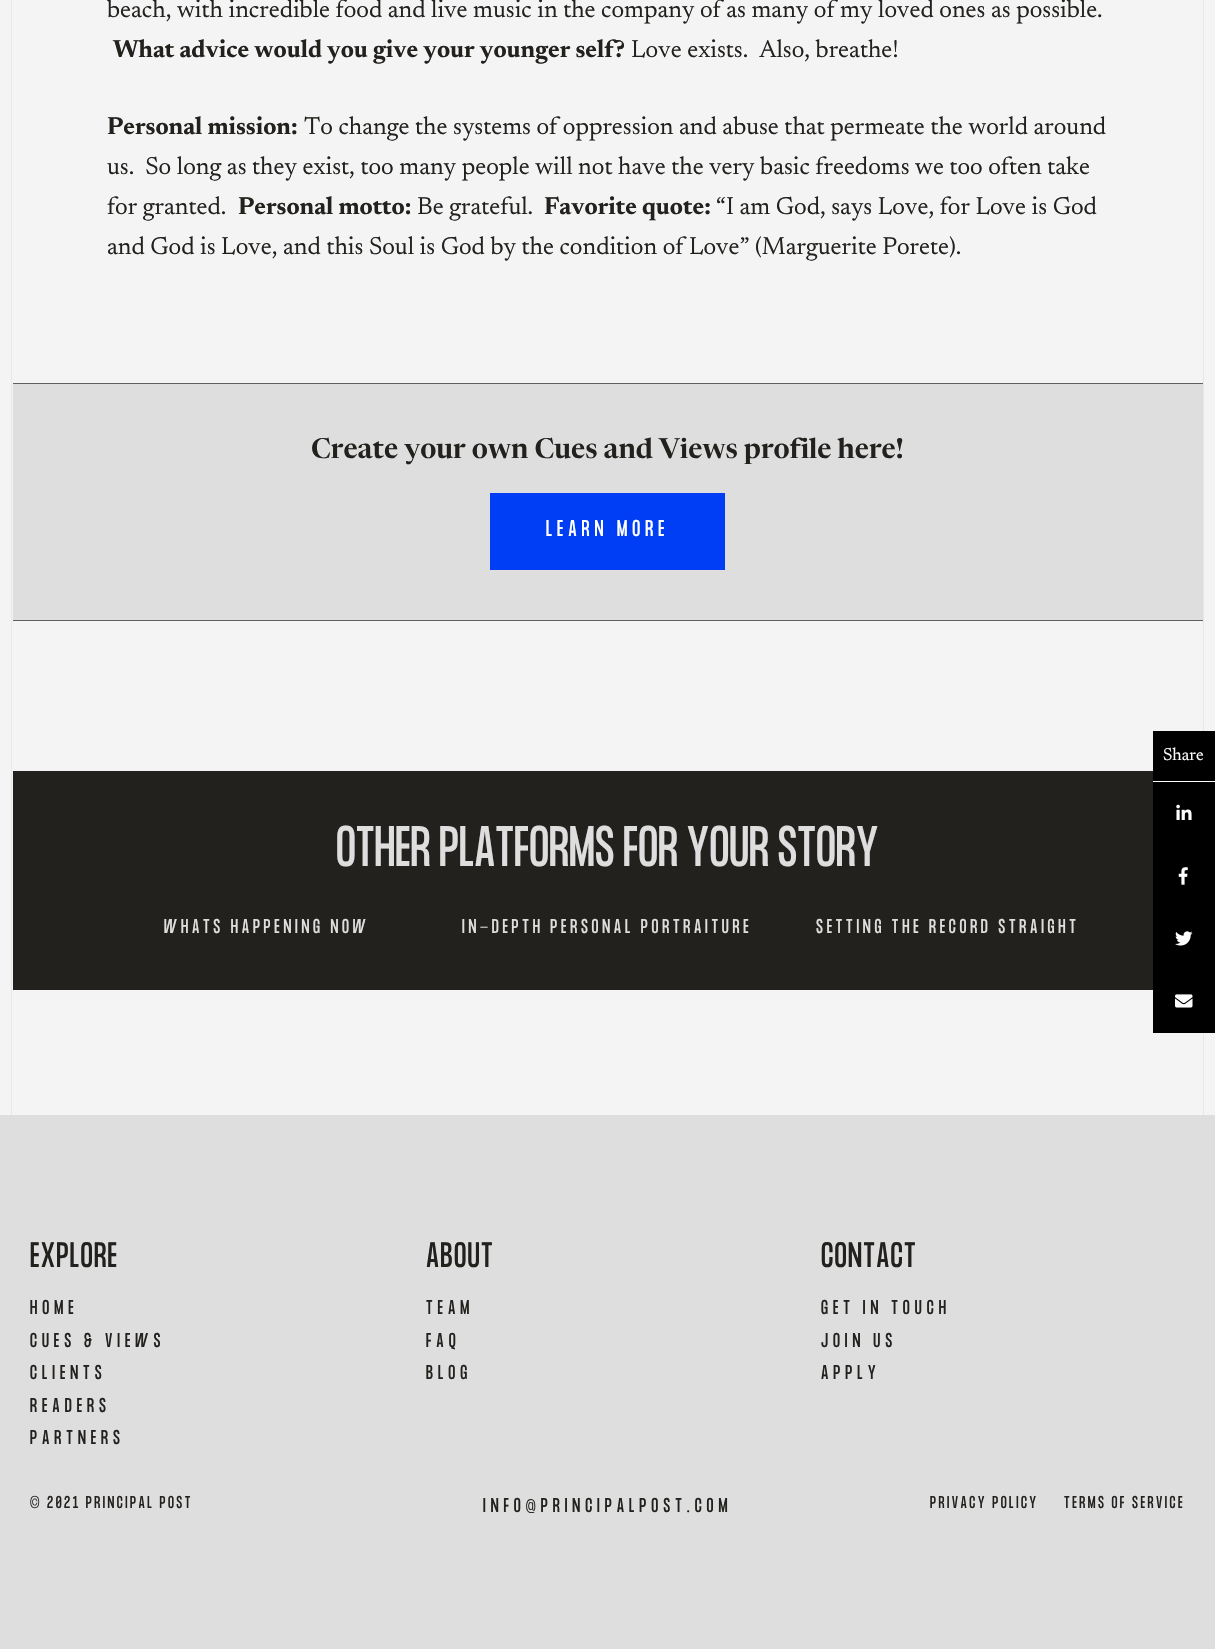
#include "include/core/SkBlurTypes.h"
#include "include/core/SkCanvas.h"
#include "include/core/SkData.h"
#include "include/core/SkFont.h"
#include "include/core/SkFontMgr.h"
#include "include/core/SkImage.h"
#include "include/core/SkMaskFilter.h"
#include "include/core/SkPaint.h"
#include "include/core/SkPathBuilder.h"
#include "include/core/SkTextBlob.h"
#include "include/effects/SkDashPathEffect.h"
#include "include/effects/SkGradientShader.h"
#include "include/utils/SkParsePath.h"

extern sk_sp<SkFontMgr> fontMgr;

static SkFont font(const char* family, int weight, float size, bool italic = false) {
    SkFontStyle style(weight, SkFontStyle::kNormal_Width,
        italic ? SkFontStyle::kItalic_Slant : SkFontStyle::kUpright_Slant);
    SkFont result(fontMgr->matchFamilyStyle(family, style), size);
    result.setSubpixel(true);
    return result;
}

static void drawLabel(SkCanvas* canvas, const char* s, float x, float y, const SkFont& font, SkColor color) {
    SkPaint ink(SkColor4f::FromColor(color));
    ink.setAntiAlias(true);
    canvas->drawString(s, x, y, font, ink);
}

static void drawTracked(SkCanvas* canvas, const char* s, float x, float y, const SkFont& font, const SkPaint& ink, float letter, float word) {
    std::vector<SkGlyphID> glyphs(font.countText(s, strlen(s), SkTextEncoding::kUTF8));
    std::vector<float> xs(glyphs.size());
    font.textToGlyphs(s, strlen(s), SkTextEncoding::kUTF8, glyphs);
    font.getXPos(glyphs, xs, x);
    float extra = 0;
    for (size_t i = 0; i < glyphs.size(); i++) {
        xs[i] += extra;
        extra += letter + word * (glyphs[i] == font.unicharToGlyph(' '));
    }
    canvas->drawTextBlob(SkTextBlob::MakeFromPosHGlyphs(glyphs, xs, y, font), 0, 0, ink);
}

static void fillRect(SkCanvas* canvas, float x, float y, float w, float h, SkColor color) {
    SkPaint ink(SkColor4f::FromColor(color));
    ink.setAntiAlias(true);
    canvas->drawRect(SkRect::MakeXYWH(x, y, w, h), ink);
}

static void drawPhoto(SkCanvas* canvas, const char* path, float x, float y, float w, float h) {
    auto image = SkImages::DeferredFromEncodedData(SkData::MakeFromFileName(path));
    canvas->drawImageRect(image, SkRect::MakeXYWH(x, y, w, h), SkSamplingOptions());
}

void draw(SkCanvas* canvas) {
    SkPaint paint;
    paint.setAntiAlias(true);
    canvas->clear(0xFFF4F4F4);
    fillRect(canvas, 13, 384, 1190, 236, 0xFFDEDEDE);
    paint.setStroke(true);
    paint.setStrokeWidth(1);
    paint.setColor(0xFF606060);
    canvas->drawRect(SkRect::MakeXYWH(0.5f, 383.5f, 1214, 237), paint);
    fillRect(canvas, 0, 383, 13, 238, 0xFFF4F4F4);
    fillRect(canvas, 11, 0, 1, 1115, 0xFFE7E7E7);
    SkFont font1 = font("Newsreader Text", 400, 25);
    drawLabel(canvas, "beach, with incredible food and live music in the company of as many of my loved ones as possible.", 107, 17, font1, 0xFF23211E);
    SkFont font2 = font("Newsreader Text", 700, 25);
    drawLabel(canvas, "What advice would you give your younger self?", 113, 57, font2, 0xFF23211E);
    drawLabel(canvas, "Love exists.  Also, breathe!", 631, 57, font1, 0xFF23211E);
    drawLabel(canvas, "Personal mission:", 107, 134, font2, 0xFF23211E);
    drawLabel(canvas, "To change the systems of oppression and abuse that permeate the world around", 304, 134, font1, 0xFF23211E);
    drawLabel(canvas, "us.  So long as they exist, too many people will not have the very basic freedoms we too often take", 107, 174, font1, 0xFF23211E);
    drawLabel(canvas, "for granted.", 107, 214, font1, 0xFF23211E);
    drawLabel(canvas, "Personal motto:", 238, 214, font2, 0xFF23211E);
    drawLabel(canvas, "Be grateful.", 417, 214, font1, 0xFF23211E);
    drawLabel(canvas, "Favorite quote:", 544, 214, font2, 0xFF23211E);
    drawLabel(canvas, "“I am God, says Love, for Love is God", 716, 214, font1, 0xFF23211E);
    drawLabel(canvas, "and God is Love, and this Soul is God by the condition of Love” (Marguerite Porete).", 107, 254, font1, 0xFF23211E);
    SkFont font3 = font("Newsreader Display", 600, 27.5f);
    drawLabel(canvas, "Create your own Cues and Views profile here!", 311, 458, font3, 0xFF23211E);
    fillRect(canvas, 490, 493, 235, 77, 0xFF003EF5);
    SkFont font4 = font("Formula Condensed", 400, 20);
    paint.setStroke(false);
    paint.setColor(0xFFFFFFFF);
    drawTracked(canvas, "LEARN MORE", 546, 536, font4, paint, 5, 0);
    fillRect(canvas, 13, 771, 1140, 219, 0xFF23211E);
    SkFont font5 = font("Formula Condensed", 400, 50);
    drawLabel(canvas, "OTHER PLATFORMS FOR YOUR STORY", 336, 866, font5, 0xFFDEDEDE);
    SkFont font6 = font("Formula Condensed", 400, 17.5f);
    paint.setColor(0xFFDEDEDE);
    drawTracked(canvas, "WHATS HAPPENING NOW", 164, 933, font6, paint, 3.75f, 0);
    drawTracked(canvas, "IN-DEPTH PERSONAL PORTRAITURE", 462, 933, font6, paint, 3.75f, 0);
    drawTracked(canvas, "SETTING THE RECORD STRAIGHT", 816, 933, font6, paint, 3.75f, 0);
    fillRect(canvas, 1203, 0, 1, 1115, 0xFFE7E7E7);
    fillRect(canvas, 1153, 731, 62, 302, 0xFF000000);
    fillRect(canvas, 1153, 781, 62, 1, 0xFFFFFFFF);
    SkFont font7 = font("Newsreader Text", 400, 17.5f);
    drawLabel(canvas, "Share", 1163, 760, font7, 0xFFFFFFFF);
    drawPhoto(canvas, "assets/img1.png", 1176, 804, 16, 16);
    drawPhoto(canvas, "assets/img2.png", 1178, 867, 10, 18);
    drawPhoto(canvas, "assets/img3.png", 1175, 931, 18, 15);
    drawPhoto(canvas, "assets/img4.png", 1175, 994, 18, 14);
    fillRect(canvas, 1204, 383, 11, 238, 0xFFF4F4F4);
    fillRect(canvas, 0, 1115, 1215, 534, 0xFFDEDEDE);
    SkFont font8 = font("Formula Condensed", 400, 31);
    paint.setColor(0xFF23211E);
    drawTracked(canvas, "EXPLORE", 30, 1267, font8, paint, 1.25f, 0);
    drawTracked(canvas, "HOME", 30, 1314, font6, paint, 5, 0);
    drawTracked(canvas, "CUES & VIEWS", 30, 1347, font6, paint, 5, 0);
    drawTracked(canvas, "CLIENTS", 30, 1379, font6, paint, 5, 0);
    drawTracked(canvas, "READERS", 30, 1412, font6, paint, 5, 0);
    drawTracked(canvas, "PARTNERS", 30, 1444, font6, paint, 5, 0);
    drawTracked(canvas, "ABOUT", 426, 1267, font8, paint, 1.25f, 0);
    drawTracked(canvas, "TEAM", 426, 1314, font6, paint, 5, 0);
    drawTracked(canvas, "FAQ", 426, 1347, font6, paint, 5, 0);
    drawTracked(canvas, "BLOG", 426, 1379, font6, paint, 5, 0);
    drawTracked(canvas, "CONTACT", 821, 1267, font8, paint, 1.25f, 0);
    drawTracked(canvas, "GET IN TOUCH", 821, 1314, font6, paint, 5, 0);
    drawTracked(canvas, "JOIN US", 821, 1347, font6, paint, 5, 0);
    drawTracked(canvas, "APPLY", 821, 1379, font6, paint, 5, 0);
    SkFont font9 = font("Formula Condensed", 400, 15);
    drawTracked(canvas, "© 2021 PRINCIPAL POST", 30, 1508, font9, paint, 2.5f, 0);
    drawTracked(canvas, "INFO@PRINCIPALPOST.COM", 483, 1512, font6, paint, 5, 0);
    drawTracked(canvas, "PRIVACY POLICY", 930, 1508, font9, paint, 2.5f, 0);
    drawTracked(canvas, "TERMS OF SERVICE", 1064, 1508, font9, paint, 2.5f, 0);
}
